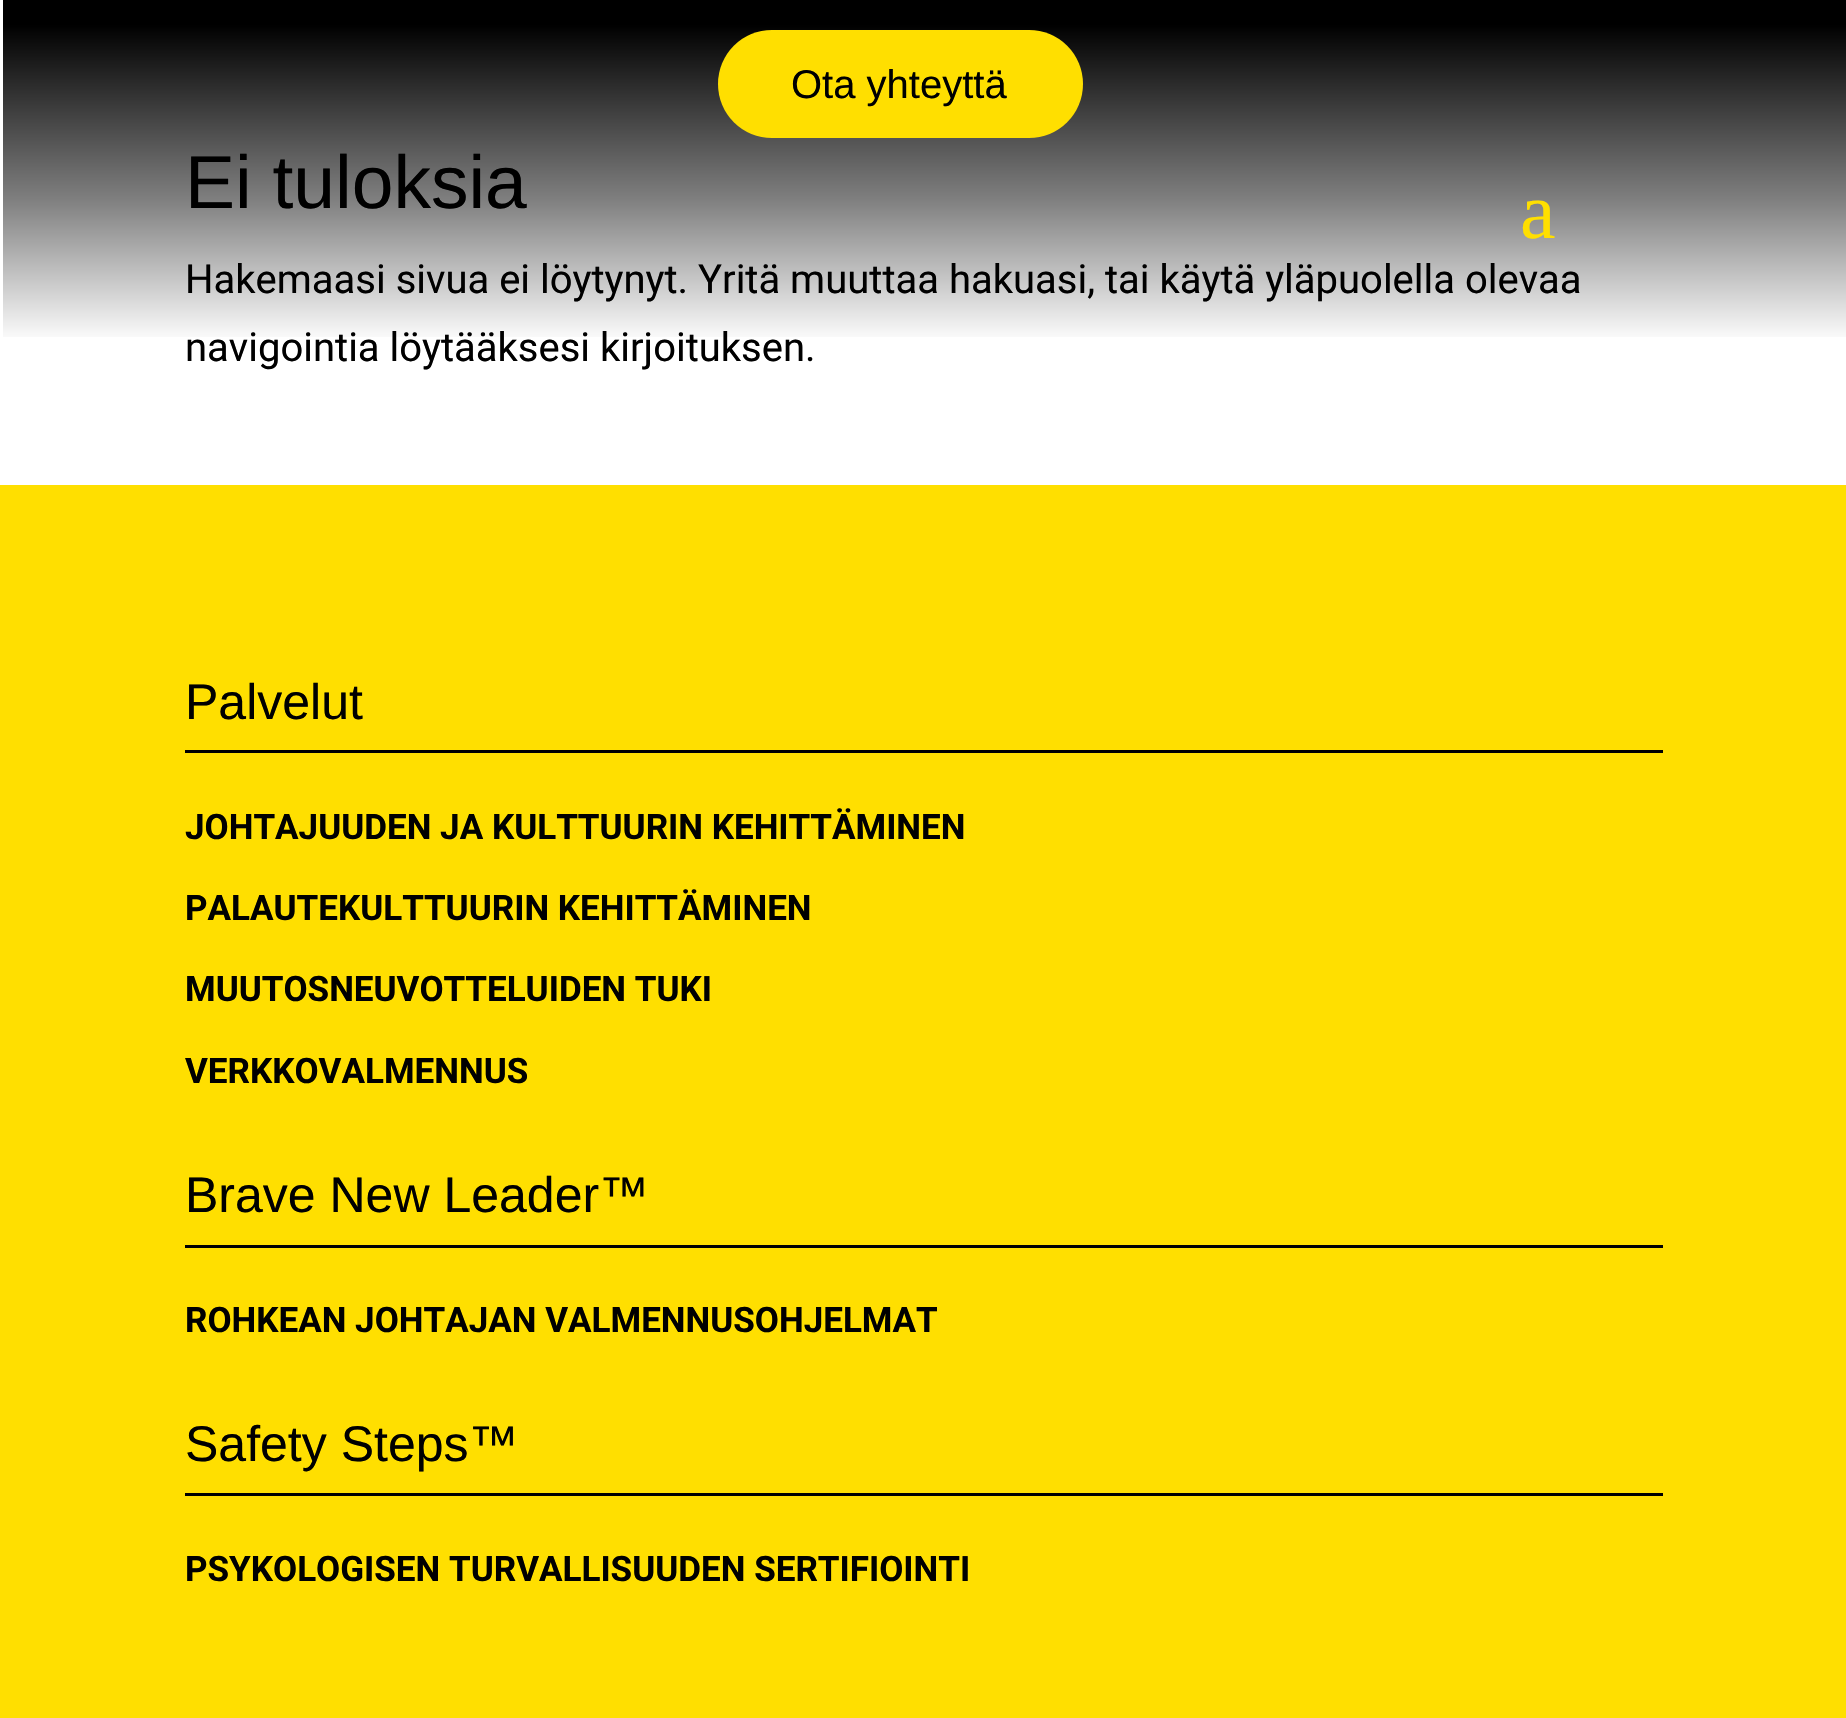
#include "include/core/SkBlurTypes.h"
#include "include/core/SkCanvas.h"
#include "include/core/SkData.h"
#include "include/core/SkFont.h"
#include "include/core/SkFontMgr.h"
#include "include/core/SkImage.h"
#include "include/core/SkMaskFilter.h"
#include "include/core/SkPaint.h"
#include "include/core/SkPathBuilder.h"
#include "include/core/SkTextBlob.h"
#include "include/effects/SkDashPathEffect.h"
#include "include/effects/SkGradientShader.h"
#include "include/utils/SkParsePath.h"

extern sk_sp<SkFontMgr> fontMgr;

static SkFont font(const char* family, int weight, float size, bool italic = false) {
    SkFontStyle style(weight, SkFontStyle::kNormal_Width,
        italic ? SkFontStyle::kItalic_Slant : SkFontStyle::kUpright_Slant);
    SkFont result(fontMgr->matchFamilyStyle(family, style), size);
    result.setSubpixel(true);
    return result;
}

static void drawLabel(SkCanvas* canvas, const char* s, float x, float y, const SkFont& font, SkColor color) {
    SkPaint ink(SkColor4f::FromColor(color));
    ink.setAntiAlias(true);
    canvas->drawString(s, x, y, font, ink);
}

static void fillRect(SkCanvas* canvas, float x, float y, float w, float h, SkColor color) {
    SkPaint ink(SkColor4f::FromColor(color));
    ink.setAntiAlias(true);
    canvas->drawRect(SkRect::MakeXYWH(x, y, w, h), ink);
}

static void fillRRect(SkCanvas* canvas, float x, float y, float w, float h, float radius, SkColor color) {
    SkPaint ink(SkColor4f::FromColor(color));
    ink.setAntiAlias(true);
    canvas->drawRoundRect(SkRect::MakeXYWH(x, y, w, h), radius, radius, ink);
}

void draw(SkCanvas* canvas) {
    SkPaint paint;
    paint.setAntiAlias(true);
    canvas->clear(0xFFFFFFFF);
    SkFont font1 = font("Liberation Sans", 400, 75);
    drawLabel(canvas, "Ei tuloksia", 185, 208, font1, 0xFF000000);
    SkFont font2 = font("Roboto", 400, 40);
    drawLabel(canvas, "Hakemaasi sivua ei löytynyt. Yritä muuttaa hakuasi, tai käytä yläpuolella olevaa", 185, 293, font2, 0xFF000000);
    drawLabel(canvas, "navigointia löytääksesi kirjoituksen.", 185, 361, font2, 0xFF000000);
    {
        const SkColor colors[] = {0xFF000000, 0x80000000, 0x00000000};
        const float stops[] = {0.07f, 0.57f, 0.98f};
        const SkPoint ends[] = {{925, 0}, {925, 350}};
        paint.setShader(SkGradientShader::MakeLinear(ends, colors, stops, 3, SkTileMode::kClamp));
        paint.setAlpha(255);
    }
    canvas->drawRect(SkRect::MakeXYWH(3, 0, 1843, 337), paint);
    fillRRect(canvas, 718, 30, 365, 108, 54, 0xFFFFDF00);
    SkFont font3 = font("Liberation Sans", 400, 40);
    drawLabel(canvas, "Ota yhteyttä", 791, 98, font3, 0xFF000000);
    SkFont font4 = font("Liberation Serif", 400, 80);
    drawLabel(canvas, "a", 1520, 238, font4, 0xFFFFDF00);
    fillRect(canvas, 0, 485, 1846, 1233, 0xFFFFDF00);
    fillRect(canvas, 185, 750, 1478, 3, 0xFF000000);
    SkFont font5 = font("Liberation Sans", 400, 50);
    drawLabel(canvas, "Palvelut", 185, 719, font5, 0xFF000000);
    SkFont font6 = font("Roboto", 700, 35);
    drawLabel(canvas, "JOHTAJUUDEN JA KULTTUURIN KEHITTÄMINEN", 185, 839, font6, 0xFF000000);
    drawLabel(canvas, "PALAUTEKULTTUURIN KEHITTÄMINEN", 185, 920, font6, 0xFF000000);
    drawLabel(canvas, "MUUTOSNEUVOTTELUIDEN TUKI", 185, 1001, font6, 0xFF000000);
    drawLabel(canvas, "VERKKOVALMENNUS", 185, 1083, font6, 0xFF000000);
    fillRect(canvas, 185, 1245, 1478, 3, 0xFF000000);
    drawLabel(canvas, "Brave New Leader™", 185, 1212, font5, 0xFF000000);
    drawLabel(canvas, "ROHKEAN JOHTAJAN VALMENNUSOHJELMAT", 185, 1332, font6, 0xFF000000);
    fillRect(canvas, 185, 1493, 1478, 3, 0xFF000000);
    drawLabel(canvas, "Safety Steps™", 185, 1461, font5, 0xFF000000);
    drawLabel(canvas, "PSYKOLOGISEN TURVALLISUUDEN SERTIFIOINTI", 185, 1581, font6, 0xFF000000);
}
